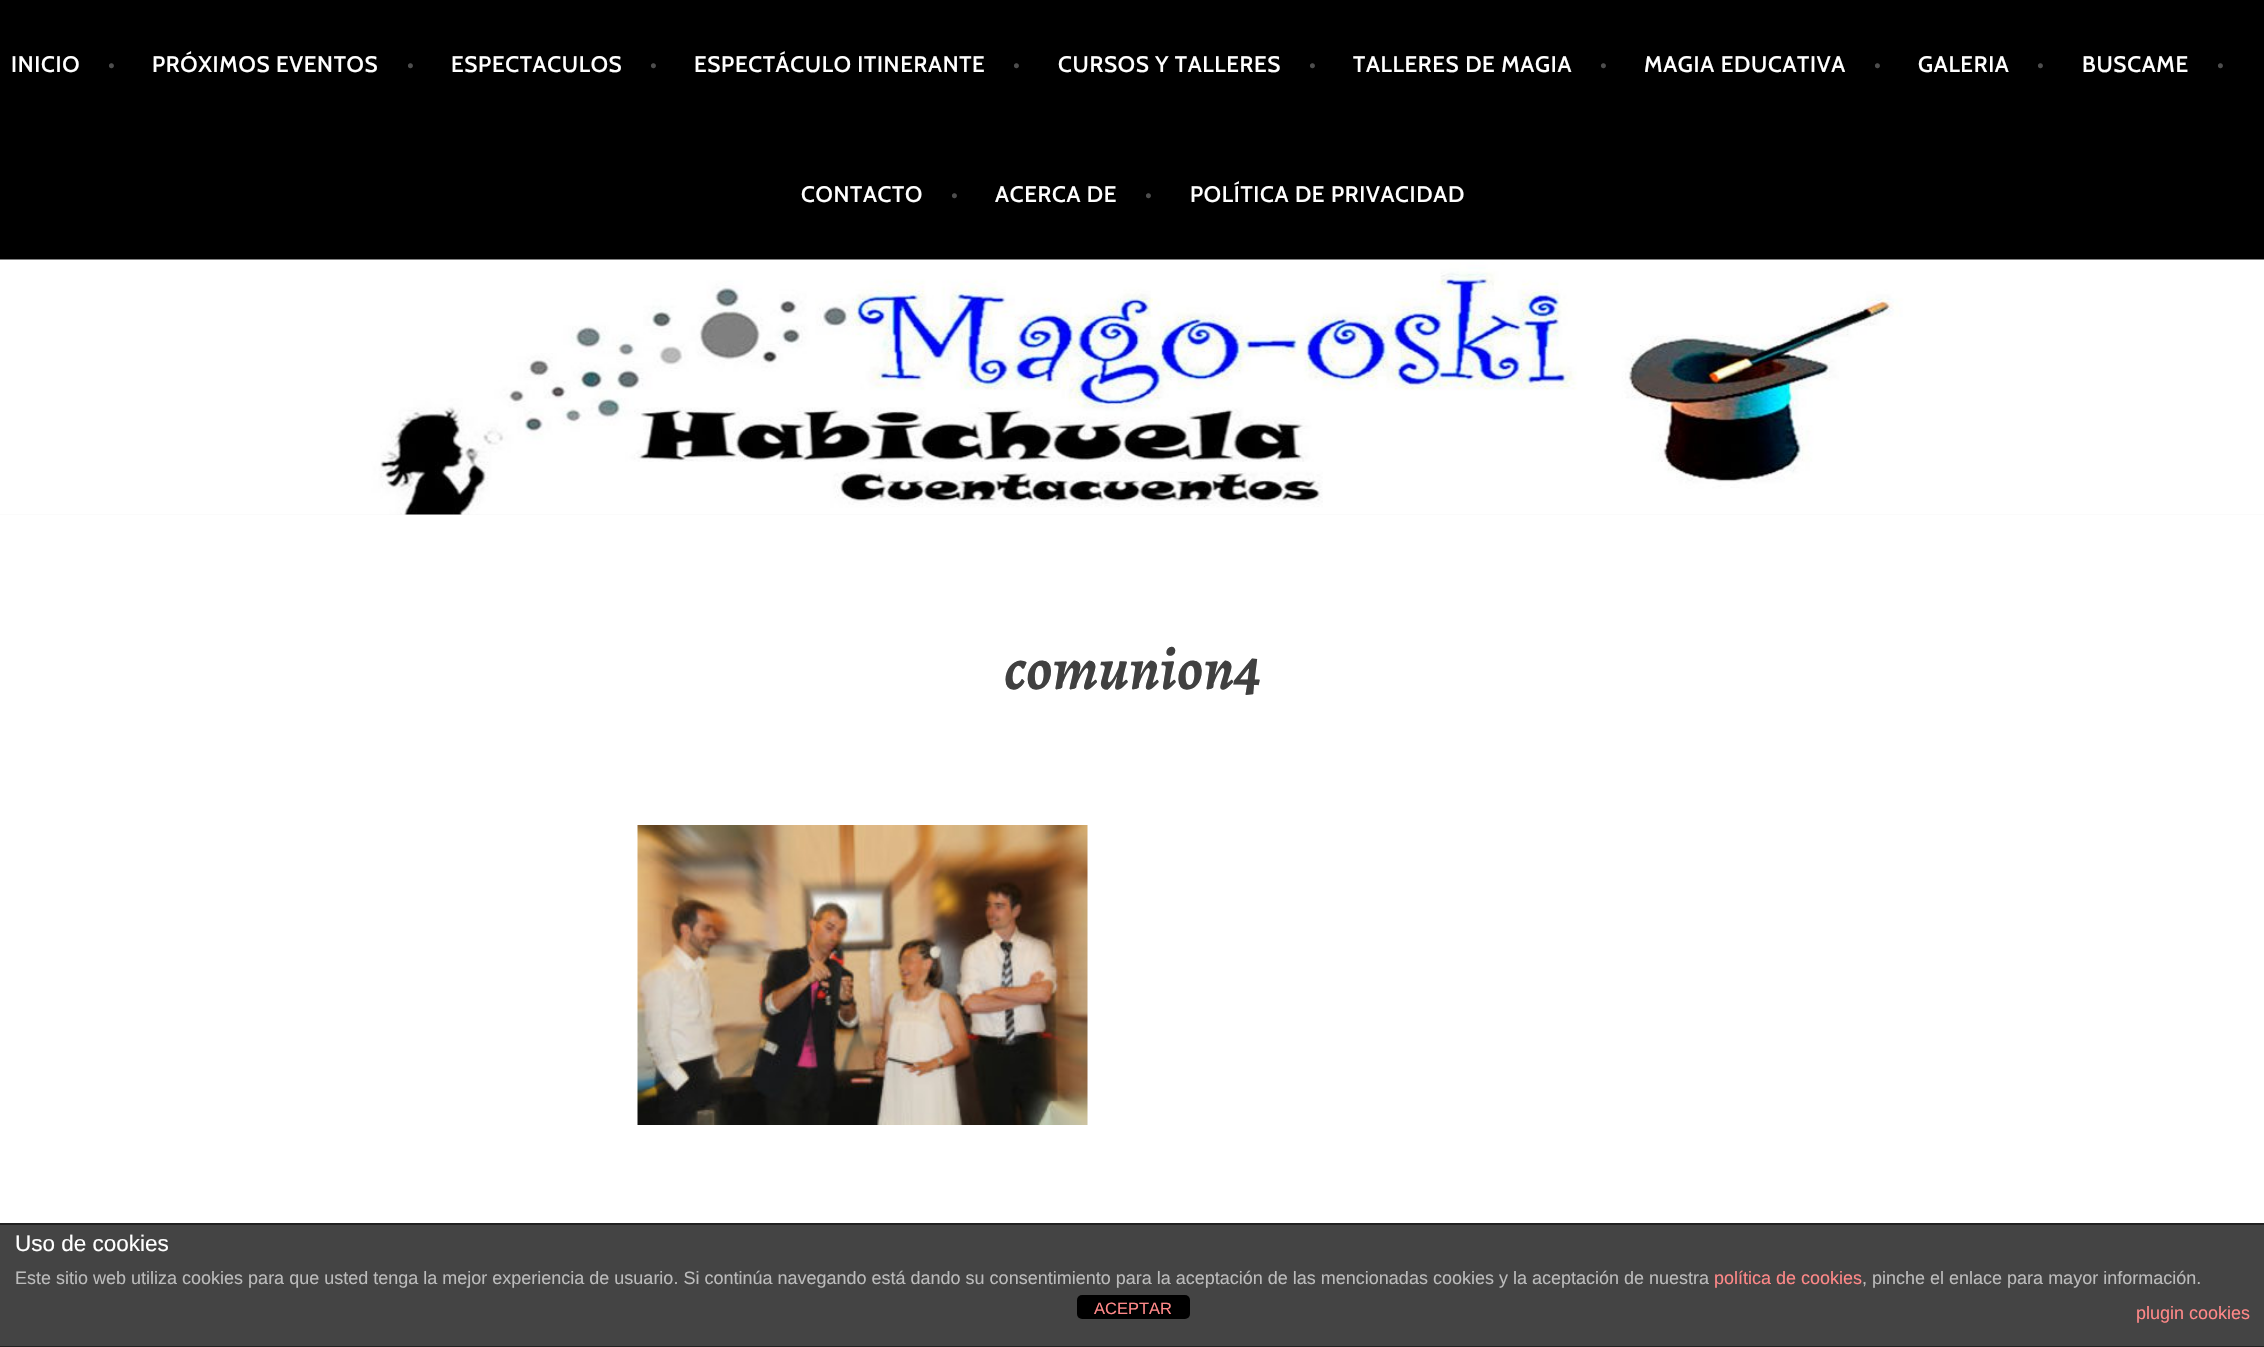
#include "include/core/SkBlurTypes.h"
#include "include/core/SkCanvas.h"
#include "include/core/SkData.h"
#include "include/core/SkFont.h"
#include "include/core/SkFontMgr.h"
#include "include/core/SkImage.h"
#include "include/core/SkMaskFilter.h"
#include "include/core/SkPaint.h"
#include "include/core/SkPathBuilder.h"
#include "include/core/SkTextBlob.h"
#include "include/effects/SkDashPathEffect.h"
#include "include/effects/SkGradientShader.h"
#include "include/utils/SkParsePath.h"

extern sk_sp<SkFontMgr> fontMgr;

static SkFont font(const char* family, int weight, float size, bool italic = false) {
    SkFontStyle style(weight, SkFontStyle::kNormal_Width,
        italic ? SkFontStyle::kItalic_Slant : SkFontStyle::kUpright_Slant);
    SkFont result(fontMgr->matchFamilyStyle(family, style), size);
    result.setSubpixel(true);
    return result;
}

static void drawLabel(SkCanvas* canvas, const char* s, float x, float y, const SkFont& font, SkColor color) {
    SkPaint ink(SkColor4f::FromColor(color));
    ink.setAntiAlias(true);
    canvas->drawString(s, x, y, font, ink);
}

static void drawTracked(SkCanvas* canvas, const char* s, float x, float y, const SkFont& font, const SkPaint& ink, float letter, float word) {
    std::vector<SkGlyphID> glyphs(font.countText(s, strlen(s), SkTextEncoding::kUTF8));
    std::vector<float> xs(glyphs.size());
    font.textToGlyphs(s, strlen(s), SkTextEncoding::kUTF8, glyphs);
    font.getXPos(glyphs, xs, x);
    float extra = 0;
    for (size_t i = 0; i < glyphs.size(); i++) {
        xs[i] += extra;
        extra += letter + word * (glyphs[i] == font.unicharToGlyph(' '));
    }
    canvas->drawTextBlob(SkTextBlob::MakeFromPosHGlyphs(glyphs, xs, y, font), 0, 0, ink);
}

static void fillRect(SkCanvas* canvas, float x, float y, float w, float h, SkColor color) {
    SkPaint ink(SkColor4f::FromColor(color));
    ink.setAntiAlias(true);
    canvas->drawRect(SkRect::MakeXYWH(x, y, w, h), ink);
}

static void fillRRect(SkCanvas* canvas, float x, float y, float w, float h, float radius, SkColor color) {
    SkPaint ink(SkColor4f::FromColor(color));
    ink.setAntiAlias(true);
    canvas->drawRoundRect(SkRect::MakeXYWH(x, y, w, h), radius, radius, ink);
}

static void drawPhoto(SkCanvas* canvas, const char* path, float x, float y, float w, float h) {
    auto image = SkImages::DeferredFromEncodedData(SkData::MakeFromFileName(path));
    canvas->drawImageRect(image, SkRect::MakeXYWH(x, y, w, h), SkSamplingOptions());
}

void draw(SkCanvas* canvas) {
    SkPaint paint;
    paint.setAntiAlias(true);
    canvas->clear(0xFFFFFFFF);
    fillRect(canvas, 0, 0, 2264, 260, 0xFF000000);
    SkFont font1 = font("Cabin", 500, 22.5f);
    paint.setColor(0xFFFFFFFF);
    drawTracked(canvas, "INICIO", 11, 72, font1, paint, 0.7f, 0);
    paint.setColor(0xFF4D4D4D);
    drawTracked(canvas, "•", 108, 72, font1, paint, 0.7f, 0);
    paint.setColor(0xFFFFFFFF);
    drawTracked(canvas, "PRÓXIMOS EVENTOS", 152, 72, font1, paint, 0.7f, 0);
    paint.setColor(0xFF4D4D4D);
    drawTracked(canvas, "•", 407, 72, font1, paint, 0.7f, 0);
    paint.setColor(0xFFFFFFFF);
    drawTracked(canvas, "ESPECTACULOS", 451, 72, font1, paint, 0.7f, 0);
    paint.setColor(0xFF4D4D4D);
    drawTracked(canvas, "•", 650, 72, font1, paint, 0.7f, 0);
    paint.setColor(0xFFFFFFFF);
    drawTracked(canvas, "ESPECTÁCULO ITINERANTE", 694, 72, font1, paint, 0.7f, 0);
    paint.setColor(0xFF4D4D4D);
    drawTracked(canvas, "•", 1013, 72, font1, paint, 0.7f, 0);
    paint.setColor(0xFFFFFFFF);
    drawTracked(canvas, "CURSOS Y TALLERES", 1058, 72, font1, paint, 0.7f, 0);
    paint.setColor(0xFF4D4D4D);
    drawTracked(canvas, "•", 1309, 72, font1, paint, 0.7f, 0);
    paint.setColor(0xFFFFFFFF);
    drawTracked(canvas, "TALLERES DE MAGIA", 1353, 72, font1, paint, 0.7f, 0);
    paint.setColor(0xFF4D4D4D);
    drawTracked(canvas, "•", 1600, 72, font1, paint, 0.7f, 0);
    paint.setColor(0xFFFFFFFF);
    drawTracked(canvas, "MAGIA EDUCATIVA", 1644, 72, font1, paint, 0.7f, 0);
    paint.setColor(0xFF4D4D4D);
    drawTracked(canvas, "•", 1874, 72, font1, paint, 0.7f, 0);
    paint.setColor(0xFFFFFFFF);
    drawTracked(canvas, "GALERIA", 1918, 72, font1, paint, 0.7f, 0);
    paint.setColor(0xFF4D4D4D);
    drawTracked(canvas, "•", 2037, 72, font1, paint, 0.7f, 0);
    paint.setColor(0xFFFFFFFF);
    drawTracked(canvas, "BUSCAME", 2082, 72, font1, paint, 0.7f, 0);
    paint.setColor(0xFF4D4D4D);
    drawTracked(canvas, "•", 2217, 72, font1, paint, 0.7f, 0);
    paint.setColor(0xFFFFFFFF);
    drawTracked(canvas, "CONTACTO", 801, 202, font1, paint, 0.7f, 0);
    paint.setColor(0xFF4D4D4D);
    drawTracked(canvas, "•", 951, 202, font1, paint, 0.7f, 0);
    paint.setColor(0xFFFFFFFF);
    drawTracked(canvas, "ACERCA DE", 995, 202, font1, paint, 0.7f, 0);
    paint.setColor(0xFF4D4D4D);
    drawTracked(canvas, "•", 1145, 202, font1, paint, 0.7f, 0);
    paint.setColor(0xFFFFFFFF);
    drawTracked(canvas, "POLÍTICA DE PRIVACIDAD", 1190, 202, font1, paint, 0.7f, 0);
    fillRect(canvas, 0, 514, 2264, 1, 0xFFF7F7F7);
    drawPhoto(canvas, "assets/img1.png", 0, 259, 2264, 256);
    SkFont font2 = font("Alegreya", 700, 60, true);
    drawLabel(canvas, "comunion4", 1004, 689, font2, 0xFF404040);
    drawPhoto(canvas, "assets/img2.png", 637, 825, 451, 300);
    fillRect(canvas, 0, 1225, 2264, 121, 0xFF444444);
    fillRect(canvas, 0, 1223, 2264, 2, 0xFF222222);
    fillRect(canvas, 0, 1346, 2264, 1, 0xFF222222);
    SkFont font3 = font("Liberation Sans", 400, 22.5f);
    drawLabel(canvas, "Uso de cookies", 15, 1251, font3, 0xFFFFFFFF);
    SkFont font4 = font("Liberation Sans", 400, 18);
    drawLabel(canvas, "Este sitio web utiliza cookies para que usted tenga la mejor experiencia de usuario. Si continúa navegando está dando su consentimiento para la aceptación de las mencionadas cookies y la aceptación de nuestra", 15, 1284, font4, 0xFFBBBBBB);
    drawLabel(canvas, "política de cookies", 1714, 1284, font4, 0xFFFF8888);
    drawLabel(canvas, ", pinche el enlace para mayor información.", 1862, 1284, font4, 0xFFBBBBBB);
    drawLabel(canvas, "plugin cookies", 2136, 1319, font4, 0xFFFF8888);
    fillRRect(canvas, 1077, 1295, 113, 24, 5, 0xFF000000);
    SkFont font5 = font("Liberation Sans", 400, 16.5f);
    drawLabel(canvas, "ACEPTAR", 1094, 1314, font5, 0xFFFF8888);
}
